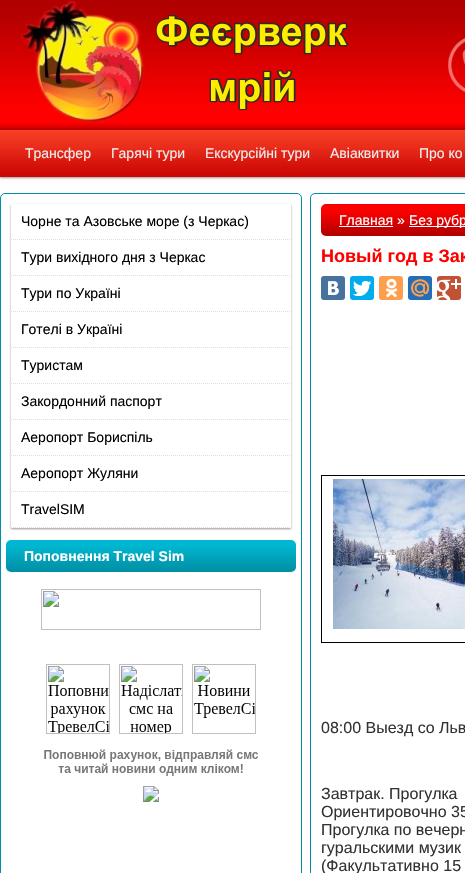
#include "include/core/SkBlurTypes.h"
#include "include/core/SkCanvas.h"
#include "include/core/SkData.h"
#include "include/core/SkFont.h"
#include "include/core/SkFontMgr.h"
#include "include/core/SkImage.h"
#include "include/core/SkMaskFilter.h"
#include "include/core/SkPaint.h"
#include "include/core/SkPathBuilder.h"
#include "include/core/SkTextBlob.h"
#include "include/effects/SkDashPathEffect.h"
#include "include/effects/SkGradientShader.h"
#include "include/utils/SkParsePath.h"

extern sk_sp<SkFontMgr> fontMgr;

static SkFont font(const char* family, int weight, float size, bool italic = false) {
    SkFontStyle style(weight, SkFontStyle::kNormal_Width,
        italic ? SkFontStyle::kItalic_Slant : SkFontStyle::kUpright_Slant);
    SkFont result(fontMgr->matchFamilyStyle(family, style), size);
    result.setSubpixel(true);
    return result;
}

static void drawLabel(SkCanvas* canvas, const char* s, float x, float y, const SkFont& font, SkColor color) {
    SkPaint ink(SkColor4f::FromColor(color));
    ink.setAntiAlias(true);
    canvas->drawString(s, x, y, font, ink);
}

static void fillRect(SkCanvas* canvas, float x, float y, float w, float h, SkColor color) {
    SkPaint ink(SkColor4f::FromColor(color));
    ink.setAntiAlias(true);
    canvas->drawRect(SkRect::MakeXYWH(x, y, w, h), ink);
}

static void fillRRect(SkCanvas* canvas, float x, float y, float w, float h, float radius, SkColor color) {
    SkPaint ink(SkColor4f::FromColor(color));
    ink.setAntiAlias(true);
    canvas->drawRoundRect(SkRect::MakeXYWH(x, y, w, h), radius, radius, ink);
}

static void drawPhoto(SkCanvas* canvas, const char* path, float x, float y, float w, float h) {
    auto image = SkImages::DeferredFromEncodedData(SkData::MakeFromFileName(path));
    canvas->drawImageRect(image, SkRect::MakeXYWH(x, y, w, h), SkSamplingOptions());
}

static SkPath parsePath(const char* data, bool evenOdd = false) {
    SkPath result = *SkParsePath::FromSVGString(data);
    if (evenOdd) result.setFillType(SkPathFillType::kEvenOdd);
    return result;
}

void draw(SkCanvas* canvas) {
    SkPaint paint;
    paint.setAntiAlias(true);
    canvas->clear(0xFFFFFFFF);
    drawPhoto(canvas, "assets/img1.png", 0, 0, 465, 130);
    drawPhoto(canvas, "assets/img2.png", 21, 1, 327, 122);
    drawPhoto(canvas, "assets/img3.png", 448, 38, 17, 54);
    paint.setColor(0x66000000);
    paint.setMaskFilter(SkMaskFilter::MakeBlur(kNormal_SkBlurStyle, 1));
    canvas->drawRect(SkRect::MakeXYWH(0, 131, 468, 47), paint);
    paint.setMaskFilter(nullptr);
    drawPhoto(canvas, "assets/img4.png", 0, 130, 465, 47);
    SkFont font1 = font("Liberation Sans", 400, 14);
    drawLabel(canvas, "Трансфер", 25, 158, font1, 0xFFEEEEEE);
    drawLabel(canvas, "Гарячі тури", 111, 158, font1, 0xFFEEEEEE);
    drawLabel(canvas, "Екскурсійні тури", 205, 158, font1, 0xFFEEEEEE);
    drawLabel(canvas, "Авіаквитки", 330, 158, font1, 0xFFEEEEEE);
    drawLabel(canvas, "Про ко", 419, 158, font1, 0xFFEEEEEE);
    paint.setStroke(true);
    paint.setStrokeWidth(1);
    paint.setColor(0xFF048DA6);
    canvas->drawRoundRect(SkRect::MakeXYWH(0.5f, 193.5f, 301, 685), 4.5f, 4.5f, paint);
    canvas->save();
    canvas->clipPath(parsePath("M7 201H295V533H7ZM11 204H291V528H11Z", true), true);
    paint.setStroke(false);
    paint.setColor(0x66000000);
    paint.setMaskFilter(SkMaskFilter::MakeBlur(kNormal_SkBlurStyle, 1));
    canvas->drawRect(SkRect::MakeXYWH(11, 205, 280, 324), paint);
    paint.setMaskFilter(nullptr);
    canvas->restore();
    paint.setStroke(true);
    paint.setColor(0xFFDDDDDD);
    paint.setPathEffect(SkDashPathEffect::Make({{1, 1}}, 0));
    canvas->drawPath(parsePath("M11 239.5H291"), paint);
    paint.setPathEffect(nullptr);
    drawLabel(canvas, "Чорне та Азовське море (з Черкас)", 21, 226, font1, 0xFF000000);
    paint.setPathEffect(SkDashPathEffect::Make({{1, 1}}, 0));
    canvas->drawPath(parsePath("M11 275.5H291"), paint);
    paint.setPathEffect(nullptr);
    drawLabel(canvas, "Тури вихідного дня з Черкас", 21, 262, font1, 0xFF000000);
    paint.setPathEffect(SkDashPathEffect::Make({{1, 1}}, 0));
    canvas->drawPath(parsePath("M11 311.5H291"), paint);
    paint.setPathEffect(nullptr);
    drawLabel(canvas, "Тури по Україні", 21, 298, font1, 0xFF000000);
    paint.setPathEffect(SkDashPathEffect::Make({{1, 1}}, 0));
    canvas->drawPath(parsePath("M11 347.5H291"), paint);
    paint.setPathEffect(nullptr);
    drawLabel(canvas, "Готелі в Україні", 21, 334, font1, 0xFF000000);
    paint.setPathEffect(SkDashPathEffect::Make({{1, 1}}, 0));
    canvas->drawPath(parsePath("M11 383.5H291"), paint);
    paint.setPathEffect(nullptr);
    drawLabel(canvas, "Туристам", 21, 370, font1, 0xFF000000);
    paint.setPathEffect(SkDashPathEffect::Make({{1, 1}}, 0));
    canvas->drawPath(parsePath("M11 419.5H291"), paint);
    paint.setPathEffect(nullptr);
    drawLabel(canvas, "Закордонний паспорт", 21, 406, font1, 0xFF000000);
    paint.setPathEffect(SkDashPathEffect::Make({{1, 1}}, 0));
    canvas->drawPath(parsePath("M11 455.5H291"), paint);
    paint.setPathEffect(nullptr);
    drawLabel(canvas, "Аеропорт Бориспіль", 21, 442, font1, 0xFF000000);
    paint.setPathEffect(SkDashPathEffect::Make({{1, 1}}, 0));
    canvas->drawPath(parsePath("M11 491.5H291"), paint);
    paint.setPathEffect(nullptr);
    drawLabel(canvas, "Аеропорт Жуляни", 21, 478, font1, 0xFF000000);
    paint.setPathEffect(SkDashPathEffect::Make({{1, 1}}, 0));
    canvas->drawPath(parsePath("M11 527.5H291"), paint);
    paint.setPathEffect(nullptr);
    drawLabel(canvas, "TravelSIM", 21, 514, font1, 0xFF000000);
    drawPhoto(canvas, "assets/img5.png", 6, 540, 290, 32);
    SkFont font2 = font("Liberation Sans", 700, 14);
    drawLabel(canvas, "Поповнення Travel Sim", 24, 561, font2, 0xFFFFFFFF);
    drawPhoto(canvas, "assets/img6.png", 41, 589, 220, 213);
    paint.setColor(0xFF048DA6);
    canvas->drawRoundRect(SkRect::MakeXYWH(310.5f, 193.5f, 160, 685), 4.5f, 4.5f, paint);
    drawPhoto(canvas, "assets/img7.png", 321, 204, 144, 32);
    drawLabel(canvas, "Главная »", 339, 225, font1, 0xFFFFFFFF);
    fillRect(canvas, 339, 226, 54, 1, 0xFFFFFFFF);
    fillRect(canvas, 409, 226, 56, 1, 0xFFFFFFFF);
    drawLabel(canvas, "Без рубр", 409, 225, font1, 0xFFFFFFFF);
    SkFont font3 = font("Liberation Sans", 700, 18);
    drawLabel(canvas, "Новый год в Зак", 321, 262, font3, 0xFFFF0000);
    fillRRect(canvas, 321, 276, 24, 24, 3, 0xFF48729E);
    drawPhoto(canvas, "assets/img8.png", 328, 281, 11, 14);
    fillRRect(canvas, 350, 276, 24, 24, 3, 0xFF00ACED);
    drawPhoto(canvas, "assets/img9.png", 353, 281, 18, 15);
    fillRRect(canvas, 379, 276, 24, 24, 3, 0xFFFF9F4D);
    drawPhoto(canvas, "assets/img10.png", 386, 279, 11, 18);
    fillRRect(canvas, 408, 276, 24, 24, 3, 0xFF226EB7);
    drawPhoto(canvas, "assets/img11.png", 411, 279, 18, 18);
    fillRRect(canvas, 437, 276, 24, 24, 3, 0xFFC25234);
    drawPhoto(canvas, "assets/img12.png", 437, 279, 24, 21);
    fillRect(canvas, 321, 475, 144, 1, 0xFF000000);
    fillRect(canvas, 321, 642, 144, 1, 0xFF000000);
    fillRect(canvas, 321, 475, 1, 168, 0xFF000000);
    drawPhoto(canvas, "assets/img13.png", 333, 479, 132, 150);
    SkFont font4 = font("Liberation Sans", 400, 16);
    drawLabel(canvas, "08:00 Выезд со Льв", 321, 733, font4, 0xFF333333);
    drawLabel(canvas, "Завтрак. Прогулка", 321, 799, font4, 0xFF333333);
    drawLabel(canvas, "Ориентировочно 35", 321, 817, font4, 0xFF333333);
    drawLabel(canvas, "Прогулка по вечерн", 321, 835, font4, 0xFF333333);
    drawLabel(canvas, "гуральскими музик", 321, 853, font4, 0xFF333333);
    drawLabel(canvas, "(Факультативно 15", 321, 871, font4, 0xFF333333);
}
